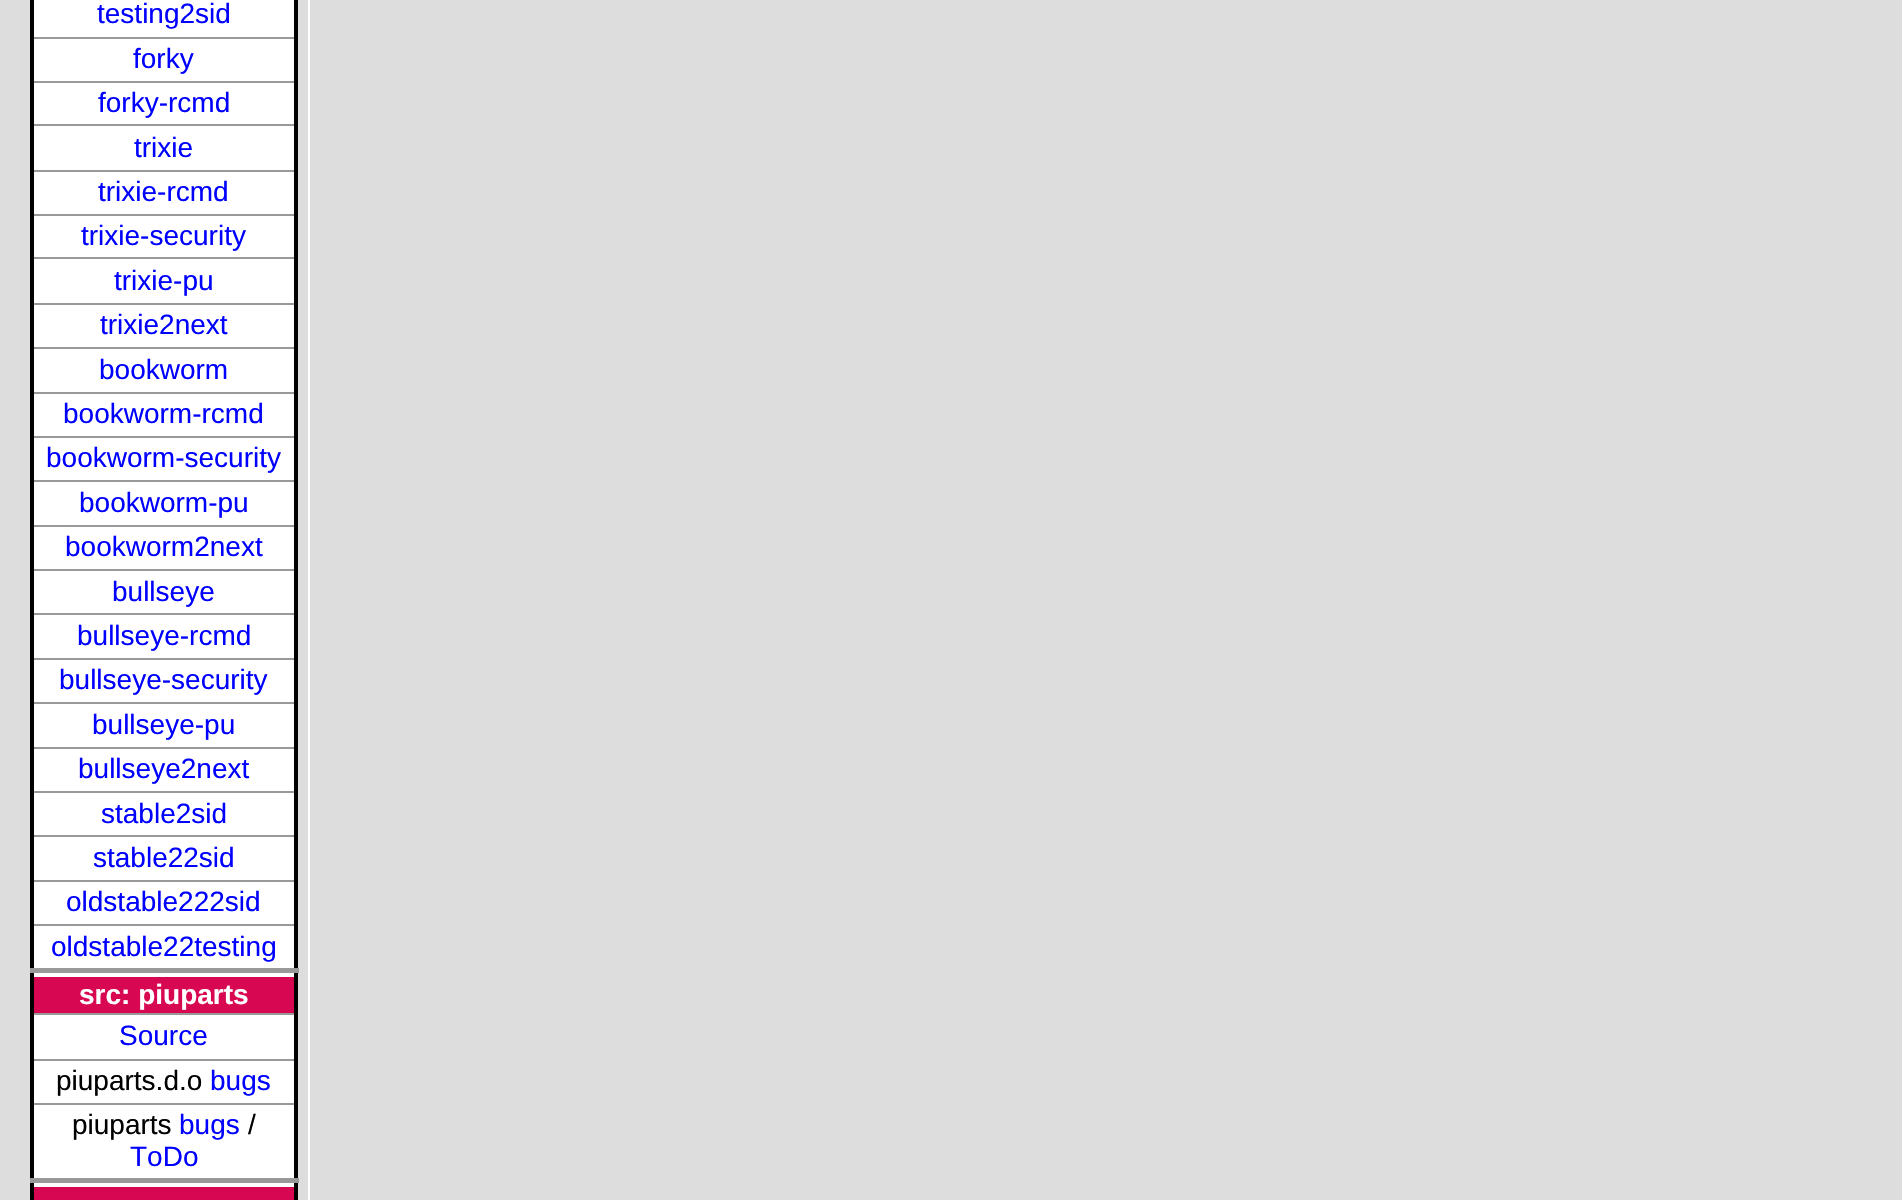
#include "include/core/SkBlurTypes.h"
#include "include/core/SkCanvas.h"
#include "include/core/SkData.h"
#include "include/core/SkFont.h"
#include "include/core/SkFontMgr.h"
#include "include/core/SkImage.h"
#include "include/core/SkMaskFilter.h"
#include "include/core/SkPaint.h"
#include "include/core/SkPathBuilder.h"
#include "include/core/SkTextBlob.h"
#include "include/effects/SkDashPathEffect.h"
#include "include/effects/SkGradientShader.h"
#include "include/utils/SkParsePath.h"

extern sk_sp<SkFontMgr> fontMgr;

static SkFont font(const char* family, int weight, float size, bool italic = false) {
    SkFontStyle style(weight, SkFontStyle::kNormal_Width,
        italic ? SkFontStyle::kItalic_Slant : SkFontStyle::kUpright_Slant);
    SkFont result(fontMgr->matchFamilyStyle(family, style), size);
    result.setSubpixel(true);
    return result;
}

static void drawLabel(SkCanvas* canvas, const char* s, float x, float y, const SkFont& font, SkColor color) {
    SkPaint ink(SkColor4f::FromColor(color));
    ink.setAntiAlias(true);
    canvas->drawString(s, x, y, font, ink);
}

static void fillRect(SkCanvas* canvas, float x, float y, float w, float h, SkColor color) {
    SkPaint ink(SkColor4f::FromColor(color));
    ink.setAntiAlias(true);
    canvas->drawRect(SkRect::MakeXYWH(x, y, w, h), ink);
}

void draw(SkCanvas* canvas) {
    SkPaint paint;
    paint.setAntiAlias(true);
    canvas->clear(0xFFDDDDDD);
    fillRect(canvas, 308, 0, 2, 1200, 0xFFFFFFFF);
    fillRect(canvas, 34, 0, 260, 1187, 0xFFFFFFFF);
    fillRect(canvas, 32, 37, 266, 2, 0xFF999999);
    fillRect(canvas, 32, 81, 266, 2, 0xFF999999);
    fillRect(canvas, 32, 124, 266, 2, 0xFF999999);
    fillRect(canvas, 32, 170, 266, 2, 0xFF999999);
    fillRect(canvas, 32, 214, 266, 2, 0xFF999999);
    fillRect(canvas, 32, 257, 266, 2, 0xFF999999);
    fillRect(canvas, 32, 303, 266, 2, 0xFF999999);
    fillRect(canvas, 32, 347, 266, 2, 0xFF999999);
    fillRect(canvas, 32, 392, 266, 2, 0xFF999999);
    fillRect(canvas, 32, 436, 266, 2, 0xFF999999);
    fillRect(canvas, 32, 480, 266, 2, 0xFF999999);
    fillRect(canvas, 32, 525, 266, 2, 0xFF999999);
    fillRect(canvas, 32, 569, 266, 2, 0xFF999999);
    fillRect(canvas, 32, 613, 266, 2, 0xFF999999);
    fillRect(canvas, 32, 658, 266, 2, 0xFF999999);
    fillRect(canvas, 32, 702, 266, 2, 0xFF999999);
    fillRect(canvas, 32, 747, 266, 2, 0xFF999999);
    fillRect(canvas, 32, 791, 266, 2, 0xFF999999);
    fillRect(canvas, 32, 835, 266, 2, 0xFF999999);
    fillRect(canvas, 32, 880, 266, 2, 0xFF999999);
    fillRect(canvas, 32, 924, 266, 2, 0xFF999999);
    fillRect(canvas, 32, 1013, 266, 2, 0xFF999999);
    fillRect(canvas, 32, 1059, 266, 2, 0xFF999999);
    fillRect(canvas, 32, 1103, 266, 2, 0xFF999999);
    fillRect(canvas, 294, 0, 4, 1200, 0xFF000000);
    fillRect(canvas, 30, 0, 4, 1200, 0xFF000000);
    SkFont font1 = font("Liberation Sans", 400, 28);
    drawLabel(canvas, "testing2sid", 97, 23, font1, 0xFF0000FF);
    drawLabel(canvas, "forky", 133, 68, font1, 0xFF0000FF);
    drawLabel(canvas, "forky-rcmd", 98, 112, font1, 0xFF0000FF);
    drawLabel(canvas, "trixie", 134, 157, font1, 0xFF0000FF);
    drawLabel(canvas, "trixie-rcmd", 98, 201, font1, 0xFF0000FF);
    drawLabel(canvas, "trixie-security", 81, 245, font1, 0xFF0000FF);
    drawLabel(canvas, "trixie-pu", 114, 290, font1, 0xFF0000FF);
    drawLabel(canvas, "trixie2next", 100, 334, font1, 0xFF0000FF);
    drawLabel(canvas, "bookworm", 99, 379, font1, 0xFF0000FF);
    drawLabel(canvas, "bookworm-rcmd", 63, 423, font1, 0xFF0000FF);
    drawLabel(canvas, "bookworm-security", 46, 467, font1, 0xFF0000FF);
    drawLabel(canvas, "bookworm-pu", 79, 512, font1, 0xFF0000FF);
    drawLabel(canvas, "bookworm2next", 65, 556, font1, 0xFF0000FF);
    drawLabel(canvas, "bullseye", 112, 601, font1, 0xFF0000FF);
    drawLabel(canvas, "bullseye-rcmd", 77, 645, font1, 0xFF0000FF);
    drawLabel(canvas, "bullseye-security", 59, 689, font1, 0xFF0000FF);
    drawLabel(canvas, "bullseye-pu", 92, 734, font1, 0xFF0000FF);
    drawLabel(canvas, "bullseye2next", 78, 778, font1, 0xFF0000FF);
    drawLabel(canvas, "stable2sid", 101, 823, font1, 0xFF0000FF);
    drawLabel(canvas, "stable22sid", 93, 867, font1, 0xFF0000FF);
    drawLabel(canvas, "oldstable222sid", 66, 911, font1, 0xFF0000FF);
    drawLabel(canvas, "oldstable22testing", 51, 956, font1, 0xFF0000FF);
    fillRect(canvas, 34, 977, 260, 36, 0xFFD70751);
    fillRect(canvas, 30, 968, 269, 5, 0xFF999999);
    SkFont font2 = font("Liberation Sans", 700, 28);
    drawLabel(canvas, "src: piuparts", 79, 1004, font2, 0xFFFFFFFF);
    drawLabel(canvas, "Source", 119, 1045, font1, 0xFF0000FF);
    drawLabel(canvas, "piuparts.d.o", 56, 1090, font1, 0xFF000000);
    drawLabel(canvas, "bugs", 210, 1090, font1, 0xFF0000FF);
    drawLabel(canvas, "piuparts", 72, 1134, font1, 0xFF000000);
    drawLabel(canvas, "bugs", 179, 1134, font1, 0xFF0000FF);
    drawLabel(canvas, "/", 248, 1134, font1, 0xFF000000);
    drawLabel(canvas, "ToDo", 130, 1166, font1, 0xFF0000FF);
    fillRect(canvas, 34, 1187, 260, 13, 0xFFD70751);
    fillRect(canvas, 30, 1178, 269, 5, 0xFF999999);
}
